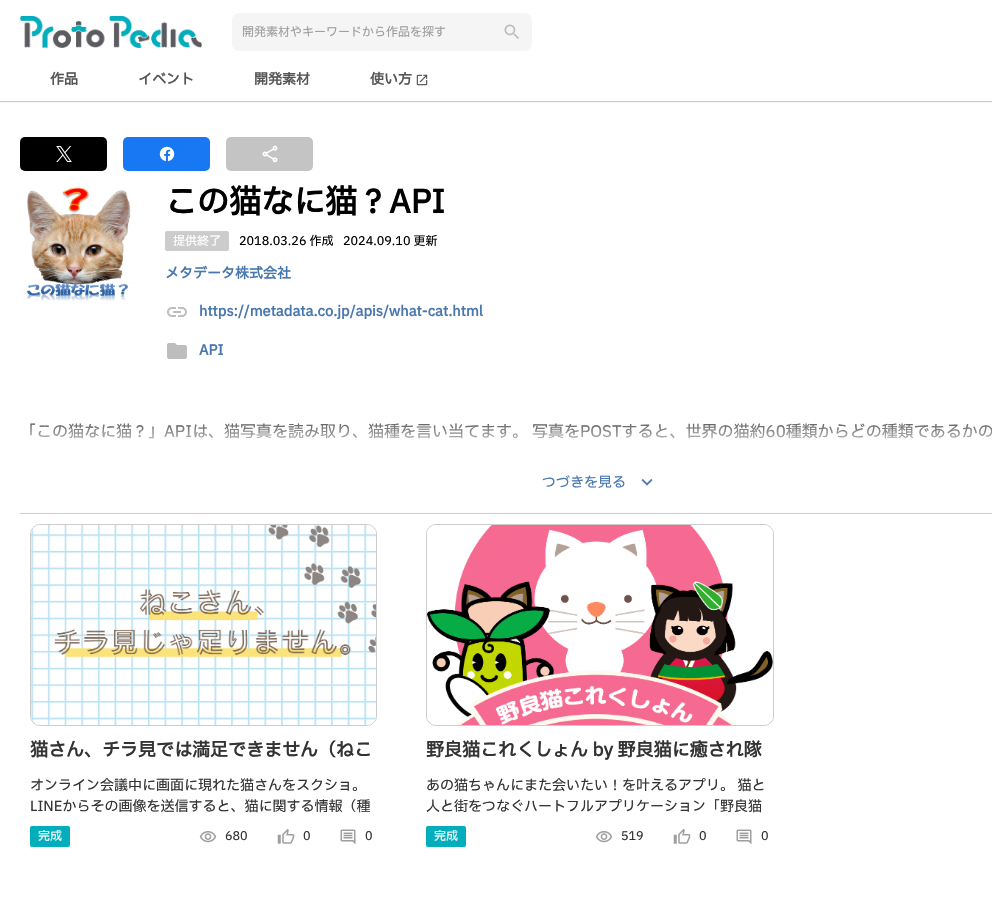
#include "include/core/SkBlurTypes.h"
#include "include/core/SkCanvas.h"
#include "include/core/SkData.h"
#include "include/core/SkFont.h"
#include "include/core/SkFontMgr.h"
#include "include/core/SkImage.h"
#include "include/core/SkMaskFilter.h"
#include "include/core/SkPaint.h"
#include "include/core/SkPathBuilder.h"
#include "include/core/SkTextBlob.h"
#include "include/effects/SkDashPathEffect.h"
#include "include/effects/SkGradientShader.h"
#include "include/utils/SkParsePath.h"

extern sk_sp<SkFontMgr> fontMgr;

static SkFont font(const char* family, int weight, float size, bool italic = false) {
    SkFontStyle style(weight, SkFontStyle::kNormal_Width,
        italic ? SkFontStyle::kItalic_Slant : SkFontStyle::kUpright_Slant);
    SkFont result(fontMgr->matchFamilyStyle(family, style), size);
    result.setSubpixel(true);
    return result;
}

static void drawLabel(SkCanvas* canvas, const char* s, float x, float y, const SkFont& font, SkColor color) {
    SkPaint ink(SkColor4f::FromColor(color));
    ink.setAntiAlias(true);
    canvas->drawString(s, x, y, font, ink);
}

static void fillRect(SkCanvas* canvas, float x, float y, float w, float h, SkColor color) {
    SkPaint ink(SkColor4f::FromColor(color));
    ink.setAntiAlias(true);
    canvas->drawRect(SkRect::MakeXYWH(x, y, w, h), ink);
}

static void fillRRect(SkCanvas* canvas, float x, float y, float w, float h, float radius, SkColor color) {
    SkPaint ink(SkColor4f::FromColor(color));
    ink.setAntiAlias(true);
    canvas->drawRoundRect(SkRect::MakeXYWH(x, y, w, h), radius, radius, ink);
}

static void drawPhoto(SkCanvas* canvas, const char* path, float x, float y, float w, float h) {
    auto image = SkImages::DeferredFromEncodedData(SkData::MakeFromFileName(path));
    canvas->drawImageRect(image, SkRect::MakeXYWH(x, y, w, h), SkSamplingOptions());
}

void draw(SkCanvas* canvas) {
    SkPaint paint;
    paint.setAntiAlias(true);
    canvas->clear(0xFFFFFFFF);
    drawPhoto(canvas, "assets/img1.png", 20, 16, 182, 32);
    fillRRect(canvas, 232, 13, 300, 38, 8, 0xFFF5F5F5);
    SkFont font1 = font("IBM Plex Sans JP", 400, 12);
    drawLabel(canvas, "開発素材やキーワードから作品を探す", 242, 36, font1, 0xFF9E9E9E);
    drawPhoto(canvas, "assets/img2.png", 504, 24, 15, 15);
    canvas->save();
    canvas->clipRect(SkRect::MakeXYWH(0, 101, 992, 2));
    paint.setColor(0xFFCCCCCC);
    paint.setMaskFilter(SkMaskFilter::MakeBlur(kNormal_SkBlurStyle, 0.5f));
    canvas->drawRect(SkRect::MakeXYWH(0, 60, 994, 42), paint);
    paint.setMaskFilter(nullptr);
    canvas->restore();
    SkFont font2 = font("IBM Plex Sans JP", 700, 14);
    drawLabel(canvas, "作品", 50, 84, font2, 0xFF565656);
    drawLabel(canvas, "イベント", 138, 84, font2, 0xFF565656);
    drawLabel(canvas, "開発素材", 254, 84, font2, 0xFF565656);
    drawLabel(canvas, "使い方", 370, 84, font2, 0xFF565656);
    drawPhoto(canvas, "assets/img3.png", 416, 74, 12, 12);
    fillRRect(canvas, 20, 137, 87, 34, 5, 0xFF000000);
    drawPhoto(canvas, "assets/img4.png", 56, 146, 16, 16);
    fillRRect(canvas, 123, 137, 87, 34, 5, 0xFF1877F2);
    drawPhoto(canvas, "assets/img5.png", 159, 146, 16, 16);
    fillRRect(canvas, 226, 137, 87, 34, 5, 0xFFC4C4C4);
    drawPhoto(canvas, "assets/img6.png", 262, 145, 16, 18);
    fillRect(canvas, 20, 513, 972, 1, 0xFFCCCCCC);
    drawPhoto(canvas, "assets/img7.png", 26, 187, 107, 114);
    SkFont font3 = font("IBM Plex Sans JP", 700, 32);
    drawLabel(canvas, "この猫なに猫？API", 165, 213, font3, 0xFF000000);
    fillRRect(canvas, 165, 231, 64, 20, 2, 0xFFCCCCCC);
    drawLabel(canvas, "提供終了", 173, 245, font1, 0xFFFFFFFF);
    drawLabel(canvas, "2018.03.26 作成", 239, 245, font1, 0xFF000000);
    drawLabel(canvas, "2024.09.10 更新", 343, 245, font1, 0xFF000000);
    drawLabel(canvas, "メタデータ株式会社", 165, 278, font2, 0xFF4877AF);
    drawPhoto(canvas, "assets/img8.png", 167, 307, 20, 10);
    drawLabel(canvas, "https://metadata.co.jp/apis/what-cat.html", 199, 316, font2, 0xFF4877AF);
    drawPhoto(canvas, "assets/img9.png", 167, 343, 20, 16);
    drawLabel(canvas, "API", 199, 355, font2, 0xFF4877AF);
    SkFont font4 = font("IBM Plex Sans JP", 400, 16);
    drawLabel(canvas, "「この猫なに猫？」APIは、猫写真を読み取り、猫種を言い当てます。 写真をPOSTすると、世界の猫約60種類からどの種類であるかの", 20, 437, font4, 0xFF000000);
    {
        const SkColor colors[] = {0xFFFFFFFF, 0x00FFFFFF};
        const float stops[] = {0, 1};
        const SkPoint ends[] = {{600, 454}, {600, 404}};
        paint.setShader(SkGradientShader::MakeLinear(ends, colors, stops, 2, SkTileMode::kClamp));
        paint.setAlpha(255);
    }
    canvas->drawRect(SkRect::MakeXYWH(30, 423, 962, 16), paint);
    SkFont font5 = font("IBM Plex Sans JP", 400, 14);
    drawLabel(canvas, "つづきを見る", 542, 487, font5, 0xFF4877AF);
    drawPhoto(canvas, "assets/img10.png", 641, 479, 12, 7);
    paint.setStroke(true);
    paint.setStrokeWidth(1);
    paint.setShader(nullptr);
    paint.setColor(0xFFCCCCCC);
    canvas->drawRoundRect(SkRect::MakeXYWH(30.5f, 524.5f, 346, 201), 9.5f, 9.5f, paint);
    drawPhoto(canvas, "assets/img11.png", 31, 525, 345, 200);
    SkFont font6 = font("IBM Plex Sans JP", 700, 18);
    drawLabel(canvas, "猫さん、チラ見では満足できません（ねこ", 30, 756, font6, 0xFF333333);
    drawLabel(canvas, "オンライン会議中に画面に現れた猫さんをスクショ。", 30, 790, font5, 0xFF333333);
    drawLabel(canvas, "LINEからその画像を送信すると、猫に関する情報（種", 30, 811, font5, 0xFF333333);
    fillRRect(canvas, 30, 826, 40, 21, 2, 0xFF02ADBC);
    drawLabel(canvas, "完成", 38, 840, font1, 0xFFFFFFFF);
    drawPhoto(canvas, "assets/img12.png", 199, 831, 18, 12);
    drawLabel(canvas, "680", 225, 840, font1, 0xFF333333);
    drawPhoto(canvas, "assets/img13.png", 277, 828, 18, 16);
    drawLabel(canvas, "0", 303, 840, font1, 0xFF333333);
    drawPhoto(canvas, "assets/img14.png", 340, 829, 16, 16);
    drawLabel(canvas, "0", 365, 840, font1, 0xFF333333);
    canvas->drawRoundRect(SkRect::MakeXYWH(426.5f, 524.5f, 347, 201), 9.5f, 9.5f, paint);
    drawPhoto(canvas, "assets/img15.png", 427, 525, 346, 200);
    drawLabel(canvas, "野良猫これくしょん by 野良猫に癒され隊", 426, 756, font6, 0xFF333333);
    drawLabel(canvas, "あの猫ちゃんにまた会いたい！を叶えるアプリ。 猫と", 426, 790, font5, 0xFF333333);
    drawLabel(canvas, "人と街をつなぐハートフルアプリケーション「野良猫", 426, 811, font5, 0xFF333333);
    fillRRect(canvas, 426, 826, 40, 21, 2, 0xFF02ADBC);
    drawLabel(canvas, "完成", 434, 840, font1, 0xFFFFFFFF);
    drawPhoto(canvas, "assets/img12.png", 595, 831, 18, 12);
    drawLabel(canvas, "519", 621, 840, font1, 0xFF333333);
    drawPhoto(canvas, "assets/img13.png", 673, 828, 18, 16);
    drawLabel(canvas, "0", 699, 840, font1, 0xFF333333);
    drawPhoto(canvas, "assets/img14.png", 736, 829, 16, 16);
    drawLabel(canvas, "0", 761, 840, font1, 0xFF333333);
}
